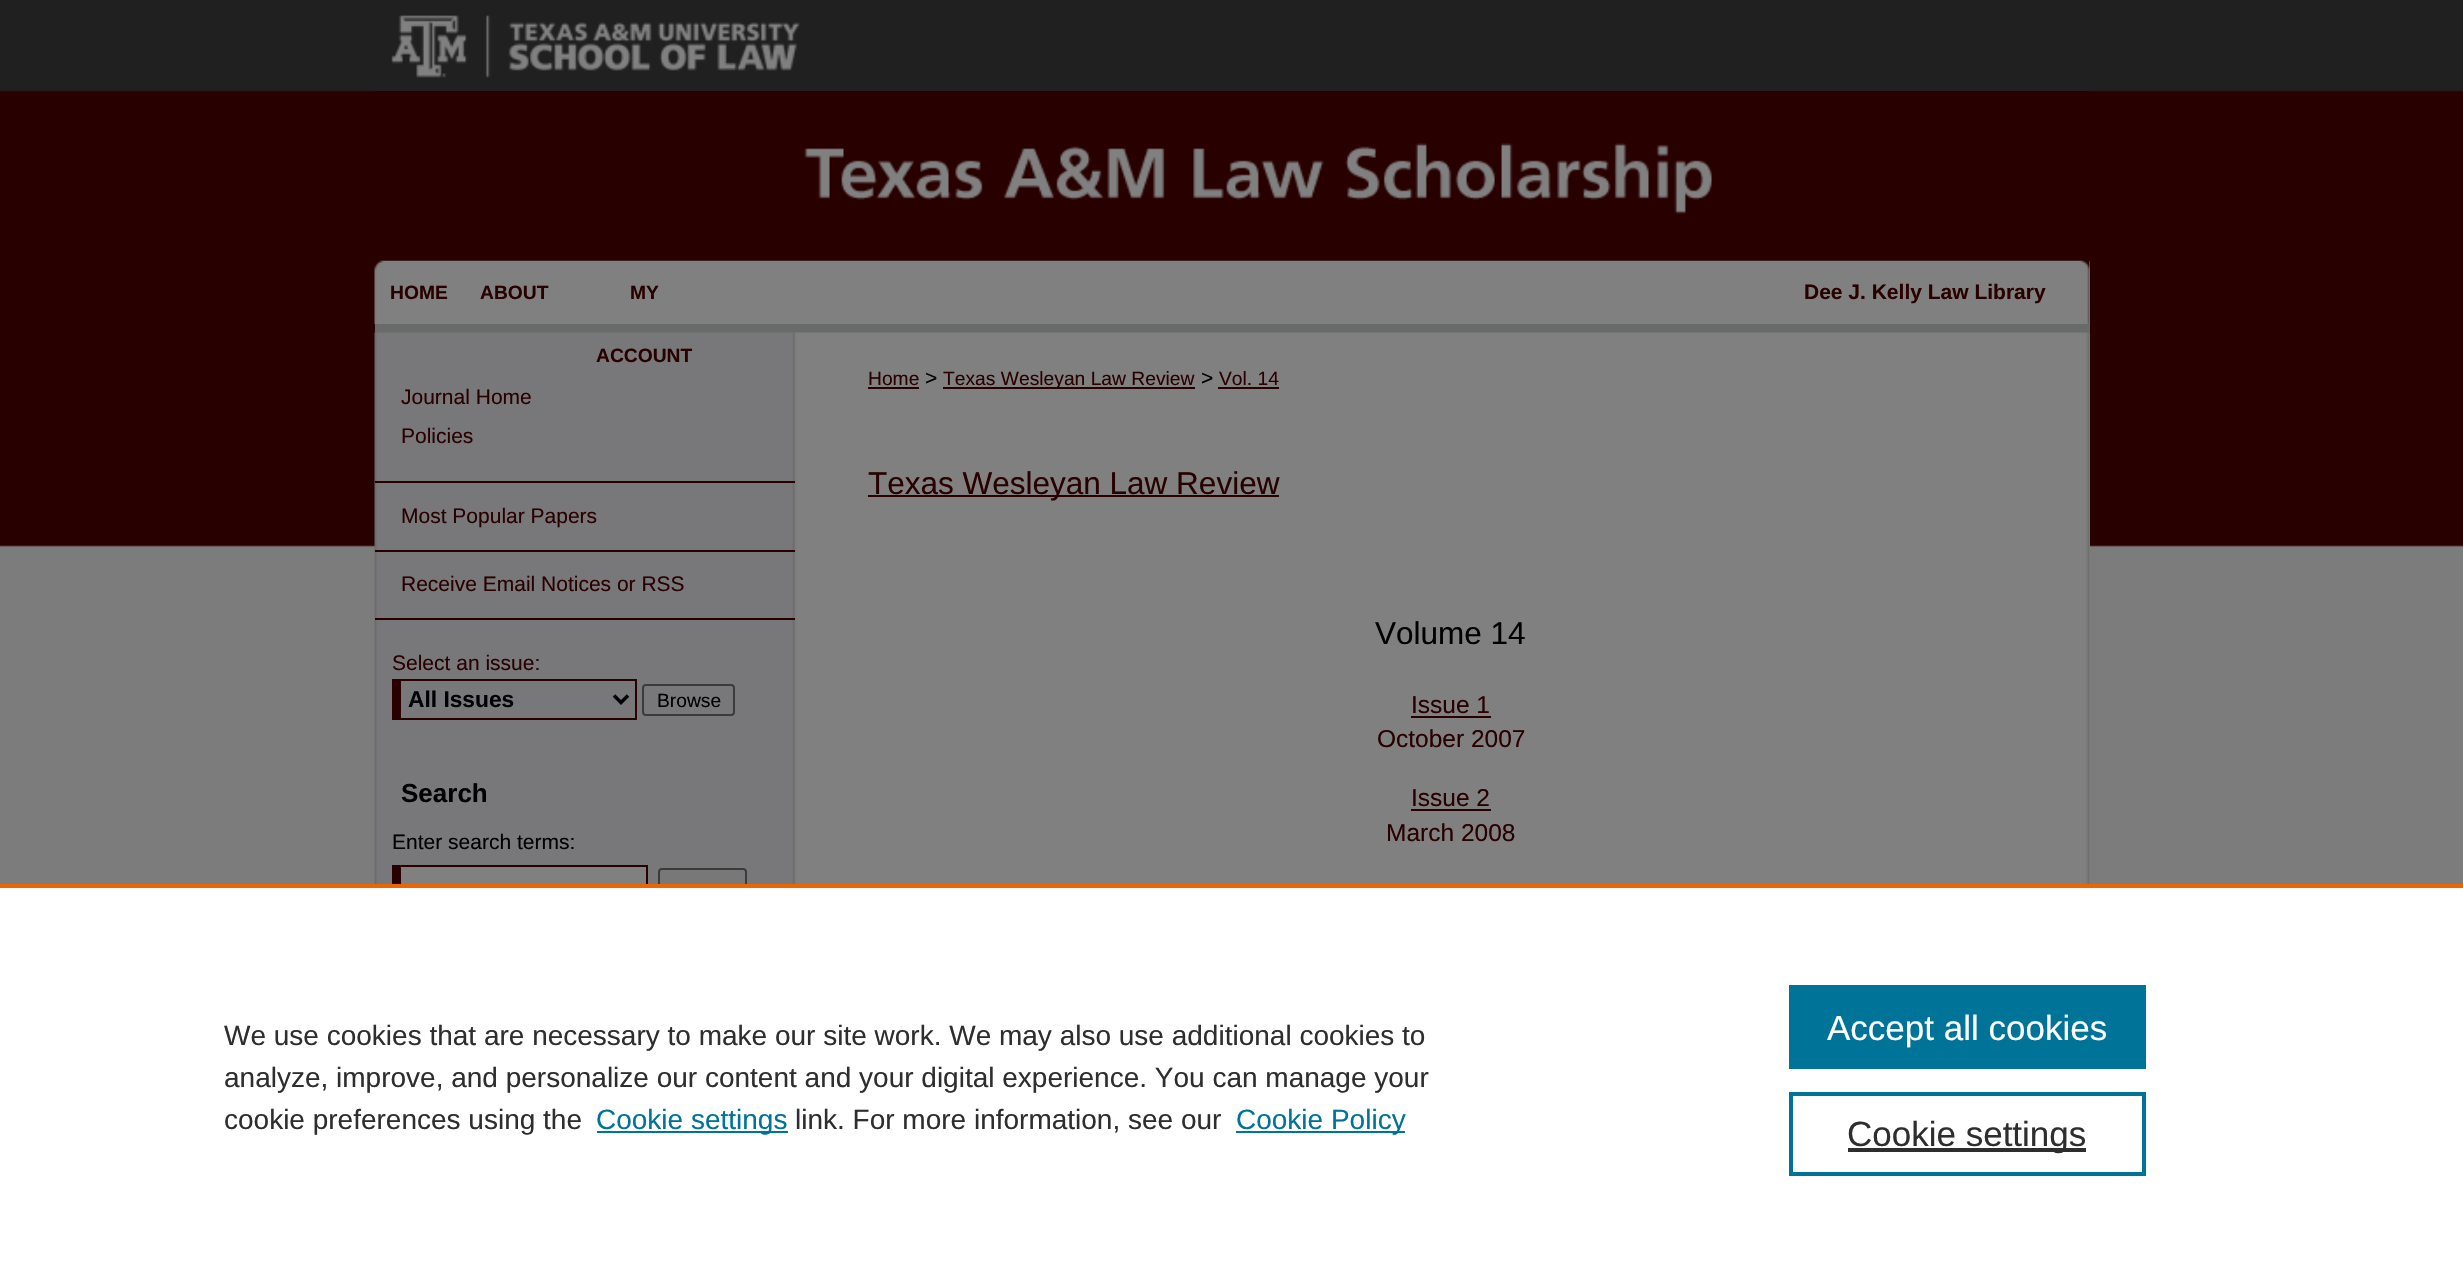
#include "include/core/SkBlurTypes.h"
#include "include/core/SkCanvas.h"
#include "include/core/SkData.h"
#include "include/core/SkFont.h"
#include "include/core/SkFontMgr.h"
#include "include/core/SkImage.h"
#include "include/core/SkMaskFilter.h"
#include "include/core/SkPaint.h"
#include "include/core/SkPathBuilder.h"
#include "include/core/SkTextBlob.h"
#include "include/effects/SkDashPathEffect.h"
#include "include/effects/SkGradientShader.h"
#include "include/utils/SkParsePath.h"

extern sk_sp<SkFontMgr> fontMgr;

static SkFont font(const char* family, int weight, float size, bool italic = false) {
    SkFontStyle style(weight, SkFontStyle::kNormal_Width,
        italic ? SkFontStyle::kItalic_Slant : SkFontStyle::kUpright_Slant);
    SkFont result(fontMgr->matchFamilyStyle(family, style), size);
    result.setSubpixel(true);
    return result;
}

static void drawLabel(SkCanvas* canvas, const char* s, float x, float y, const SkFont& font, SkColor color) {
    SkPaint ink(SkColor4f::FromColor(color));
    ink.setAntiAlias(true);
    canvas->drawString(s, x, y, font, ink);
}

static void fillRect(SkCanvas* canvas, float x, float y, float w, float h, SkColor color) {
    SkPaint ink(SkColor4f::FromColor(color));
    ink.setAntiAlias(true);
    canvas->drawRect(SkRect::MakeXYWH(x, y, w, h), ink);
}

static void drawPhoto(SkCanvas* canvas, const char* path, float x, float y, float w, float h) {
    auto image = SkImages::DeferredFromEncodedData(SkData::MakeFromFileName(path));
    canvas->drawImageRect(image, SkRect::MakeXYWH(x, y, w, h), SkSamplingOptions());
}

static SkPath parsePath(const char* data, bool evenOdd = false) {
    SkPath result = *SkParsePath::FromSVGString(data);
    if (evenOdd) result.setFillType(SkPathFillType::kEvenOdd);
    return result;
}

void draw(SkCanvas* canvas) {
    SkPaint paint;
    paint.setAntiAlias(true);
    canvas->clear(0xFF7C7C7D);
    drawPhoto(canvas, "assets/img1.png", 0, 0, 2463, 547);
    fillRect(canvas, 375, 91, 1715, 1, 0xFF280000);
    fillRect(canvas, 375, 90, 1715, 1, 0xFF212021);
    drawPhoto(canvas, "assets/img2.png", 374, 15, 426, 76);
    drawPhoto(canvas, "assets/img3.png", 374, 91, 1338, 123);
    fillRect(canvas, 375, 261, 1715, 63, 0xFF808080);
    drawPhoto(canvas, "assets/img4.png", 374, 260, 1716, 64);
    fillRect(canvas, 375, 324, 1715, 9, 0xFF696A6A);
    SkFont font1 = font("Liberation Sans", 700, 19.25f);
    drawLabel(canvas, "HOME", 390, 299, font1, 0xFF280000);
    drawLabel(canvas, "ABOUT", 480, 299, font1, 0xFF280000);
    drawLabel(canvas, "MY", 630, 299, font1, 0xFF280000);
    fillRect(canvas, 2089, 333, 1, 551, 0xFF808080);
    drawPhoto(canvas, "assets/img5.png", 374, 332, 1716, 552);
    drawLabel(canvas, "ACCOUNT", 596, 362, font1, 0xFF280000);
    SkFont font2 = font("Liberation Sans", 700, 21);
    drawLabel(canvas, "Dee J. Kelly Law Library", 1804, 299, font2, 0xFF280000);
    SkFont font3 = font("Liberation Sans", 400, 21);
    drawLabel(canvas, "Journal Home", 401, 404, font3, 0xFF280000);
    drawLabel(canvas, "Policies", 401, 443, font3, 0xFF280000);
    fillRect(canvas, 375, 481, 420, 2, 0xFF280000);
    fillRect(canvas, 375, 550, 420, 2, 0xFF280000);
    drawLabel(canvas, "Most Popular Papers", 401, 523, font3, 0xFF280000);
    fillRect(canvas, 375, 618, 420, 2, 0xFF280000);
    drawLabel(canvas, "Receive Email Notices or RSS", 401, 591, font3, 0xFF280000);
    drawLabel(canvas, "Select an issue:", 392, 670, font3, 0xFF280000);
    fillRect(canvas, 401, 679, 236, 2, 0xFF280000);
    fillRect(canvas, 635, 679, 2, 40, 0xFF280000);
    fillRect(canvas, 392, 718, 245, 2, 0xFF280000);
    fillRect(canvas, 392, 679, 9, 39, 0xFF280000);
    paint.setStroke(true);
    paint.setStrokeWidth(3.5f);
    paint.setColor(0xFF000000);
    canvas->drawPath(parsePath("M614 695.5L621 702.5L628 695.5"), paint);
    SkFont font4 = font("Liberation Sans", 700, 22.75f);
    drawLabel(canvas, "All Issues", 408, 707, font4, 0xFF000000);
    paint.setStrokeWidth(2);
    paint.setColor(0xFF3B3B3B);
    canvas->drawRoundRect(SkRect::MakeXYWH(643, 685, 91, 30), 3, 3, paint);
    SkFont font5 = font("Liberation Sans", 400, 19.25f);
    drawLabel(canvas, "Browse", 657, 707, font5, 0xFF000000);
    SkFont font6 = font("Liberation Sans", 700, 26);
    drawLabel(canvas, "Search", 401, 802, font6, 0xFF000000);
    drawLabel(canvas, "Enter search terms:", 392, 849, font3, 0xFF000000);
    fillRect(canvas, 401, 867, 245, 17, 0xFF808080);
    fillRect(canvas, 401, 865, 247, 2, 0xFF280000);
    fillRect(canvas, 646, 865, 2, 19, 0xFF280000);
    fillRect(canvas, 392, 865, 9, 19, 0xFF280000);
    paint.setStroke(false);
    paint.setColor(0xFF787878);
    canvas->drawRoundRect(SkRect::MakeXYWH(659, 869, 87, 30), 3, 3, paint);
    paint.setStroke(true);
    paint.setColor(0xFF3B3B3B);
    canvas->drawRoundRect(SkRect::MakeXYWH(659, 869, 87, 30), 3, 3, paint);
    drawLabel(canvas, "Home", 868, 385, font5, 0xFF280000);
    fillRect(canvas, 868, 387, 51, 2, 0xFF280000);
    drawLabel(canvas, ">", 925, 385, font3, 0xFF000000);
    fillRect(canvas, 943, 387, 252, 2, 0xFF280000);
    drawLabel(canvas, "Texas Wesleyan Law Review", 943, 385, font5, 0xFF280000);
    drawLabel(canvas, ">", 1201, 385, font3, 0xFF000000);
    drawLabel(canvas, "Vol. 14", 1219, 385, font5, 0xFF280000);
    fillRect(canvas, 1218, 387, 61, 2, 0xFF280000);
    fillRect(canvas, 868, 495, 411, 2, 0xFF280000);
    SkFont font7 = font("Liberation Sans", 400, 31.5f);
    drawLabel(canvas, "Texas Wesleyan Law Review", 868, 494, font7, 0xFF280000);
    drawLabel(canvas, "Volume 14", 1375, 644, font7, 0xFF000000);
    SkFont font8 = font("Liberation Sans", 400, 24.5f);
    drawLabel(canvas, "Issue 1", 1411, 713, font8, 0xFF280000);
    fillRect(canvas, 1411, 716, 80, 2, 0xFF280000);
    drawLabel(canvas, "October 2007", 1377, 747, font8, 0xFF280000);
    drawLabel(canvas, "Issue 2", 1411, 806, font8, 0xFF280000);
    fillRect(canvas, 1411, 809, 80, 2, 0xFF280000);
    drawLabel(canvas, "March 2008", 1386, 841, font8, 0xFF280000);
    fillRect(canvas, 0, 888, 2463, 380, 0xFFFFFFFF);
    fillRect(canvas, 0, 884, 2463, 4, 0xFFEB6500);
    SkFont font9 = font("Liberation Sans", 400, 28);
    drawLabel(canvas, "We use cookies that are necessary to make our site work. We may also use additional cookies to", 224, 1045, font9, 0xFF2E2E2E);
    drawLabel(canvas, "analyze, improve, and personalize our content and your digital experience. You can manage your", 224, 1087, font9, 0xFF2E2E2E);
    drawLabel(canvas, "cookie preferences using the", 224, 1129, font9, 0xFF2E2E2E);
    fillRect(canvas, 597, 1131, 191, 2, 0xFF007398);
    drawLabel(canvas, "Cookie settings", 596, 1129, font9, 0xFF007398);
    drawLabel(canvas, "link. For more information, see our", 795, 1129, font9, 0xFF2E2E2E);
    fillRect(canvas, 1236, 1131, 169, 2, 0xFF007398);
    drawLabel(canvas, "Cookie Policy", 1236, 1129, font9, 0xFF007398);
    fillRect(canvas, 1789, 985, 357, 84, 0xFF007398);
    SkFont font10 = font("Liberation Sans", 400, 35);
    drawLabel(canvas, "Accept all cookies", 1827, 1040, font10, 0xFFFFFFFF);
    paint.setStrokeWidth(4);
    paint.setColor(0xFF007398);
    canvas->drawRect(SkRect::MakeXYWH(1791, 1094, 353, 80), paint);
    fillRect(canvas, 1848, 1148, 238, 4, 0xFF2E2E2E);
    drawLabel(canvas, "Cookie settings", 1847, 1146, font10, 0xFF2E2E2E);
}
